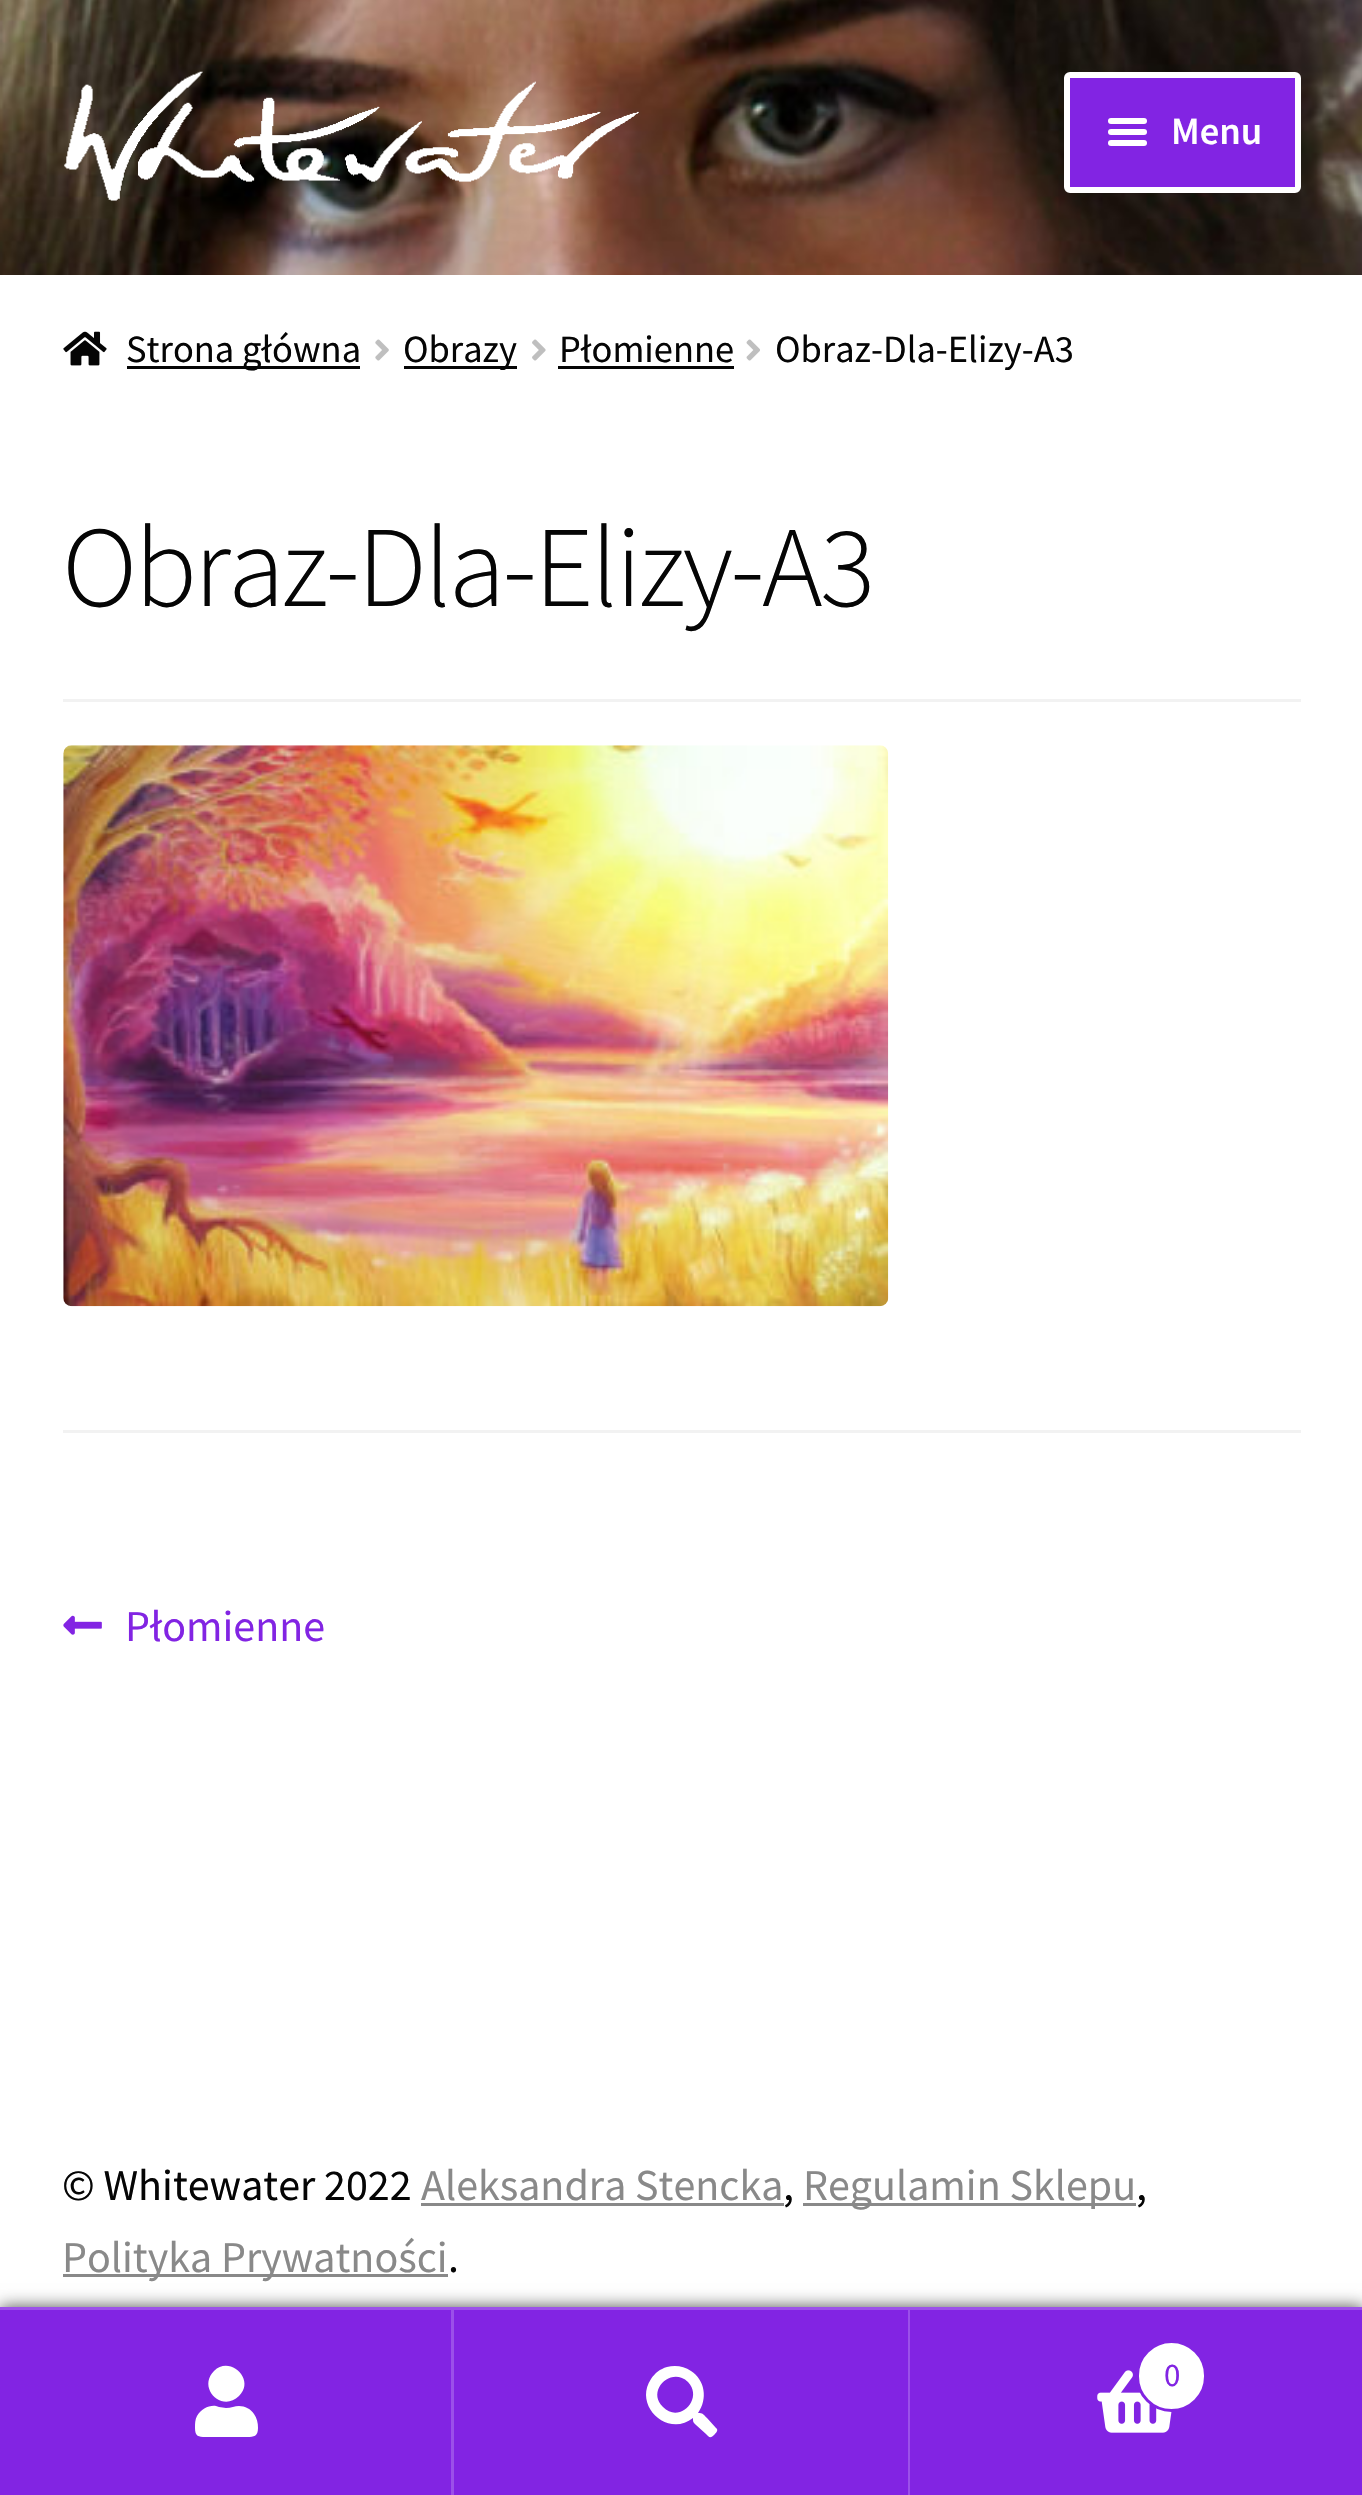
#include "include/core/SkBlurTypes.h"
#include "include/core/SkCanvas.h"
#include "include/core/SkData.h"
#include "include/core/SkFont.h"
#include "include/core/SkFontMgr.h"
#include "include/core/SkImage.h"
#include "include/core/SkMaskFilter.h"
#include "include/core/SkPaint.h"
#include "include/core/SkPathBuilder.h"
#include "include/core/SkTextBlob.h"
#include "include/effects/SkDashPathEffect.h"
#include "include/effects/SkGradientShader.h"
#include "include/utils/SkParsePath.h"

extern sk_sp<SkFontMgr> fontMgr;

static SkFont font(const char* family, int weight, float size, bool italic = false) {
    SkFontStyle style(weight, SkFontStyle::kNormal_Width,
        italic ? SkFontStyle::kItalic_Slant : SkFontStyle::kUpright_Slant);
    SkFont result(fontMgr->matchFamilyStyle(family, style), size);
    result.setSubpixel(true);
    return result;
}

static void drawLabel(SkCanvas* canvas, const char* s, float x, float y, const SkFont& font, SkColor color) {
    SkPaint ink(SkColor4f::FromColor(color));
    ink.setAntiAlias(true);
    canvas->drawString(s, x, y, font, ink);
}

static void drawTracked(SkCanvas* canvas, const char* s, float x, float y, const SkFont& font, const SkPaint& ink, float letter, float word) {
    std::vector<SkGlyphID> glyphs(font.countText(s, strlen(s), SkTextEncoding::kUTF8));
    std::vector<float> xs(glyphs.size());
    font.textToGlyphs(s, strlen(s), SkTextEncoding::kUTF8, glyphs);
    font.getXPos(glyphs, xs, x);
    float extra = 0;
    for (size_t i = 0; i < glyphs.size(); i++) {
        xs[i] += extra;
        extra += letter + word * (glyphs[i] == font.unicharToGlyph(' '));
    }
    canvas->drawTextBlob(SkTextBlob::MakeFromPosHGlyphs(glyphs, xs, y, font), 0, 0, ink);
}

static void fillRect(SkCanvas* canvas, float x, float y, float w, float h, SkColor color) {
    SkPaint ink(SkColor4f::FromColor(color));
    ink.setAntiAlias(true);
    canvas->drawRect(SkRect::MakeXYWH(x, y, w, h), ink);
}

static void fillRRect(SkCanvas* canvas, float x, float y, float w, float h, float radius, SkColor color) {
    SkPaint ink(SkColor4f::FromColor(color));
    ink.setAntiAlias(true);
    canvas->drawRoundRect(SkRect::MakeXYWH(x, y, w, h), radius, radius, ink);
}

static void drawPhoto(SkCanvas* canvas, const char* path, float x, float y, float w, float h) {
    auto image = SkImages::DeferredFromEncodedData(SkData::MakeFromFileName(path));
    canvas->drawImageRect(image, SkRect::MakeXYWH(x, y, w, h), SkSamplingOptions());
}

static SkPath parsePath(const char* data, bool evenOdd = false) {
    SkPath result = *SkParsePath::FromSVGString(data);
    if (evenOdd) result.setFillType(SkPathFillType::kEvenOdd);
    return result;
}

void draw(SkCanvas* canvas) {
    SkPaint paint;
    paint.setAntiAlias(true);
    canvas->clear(0xFFFFFFFF);
    drawPhoto(canvas, "assets/img1.png", 0, 0, 1362, 275);
    drawPhoto(canvas, "assets/img2.png", 64, 71, 575, 130);
    paint.setColor(0xFF8224E3);
    canvas->drawRoundRect(SkRect::MakeXYWH(1067, 75, 231, 115), 3, 3, paint);
    paint.setStroke(true);
    paint.setStrokeWidth(6);
    paint.setColor(0xFFFFFFFF);
    canvas->drawRoundRect(SkRect::MakeXYWH(1067, 75, 231, 115), 3, 3, paint);
    fillRRect(canvas, 1108, 118, 39, 6, 3, 0xFFFFFFFF);
    fillRRect(canvas, 1108, 129, 39, 6, 3, 0xFFFFFFFF);
    SkFont font1 = font("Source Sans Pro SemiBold", 600, 38.5f);
    drawLabel(canvas, "Menu", 1171, 144, font1, 0xFFFFFFFF);
    fillRRect(canvas, 1108, 140, 39, 6, 3, 0xFFFFFFFF);
    drawPhoto(canvas, "assets/img3.png", 63, 331, 44, 35);
    fillRect(canvas, 127, 366, 233, 3, 0xFF050505);
    SkFont font2 = font("Source Sans Pro", 400, 38.5f);
    drawLabel(canvas, "Strona główna", 126, 362, font2, 0xFF050505);
    drawPhoto(canvas, "assets/img4.png", 375, 339, 14, 22);
    fillRect(canvas, 404, 366, 113, 3, 0xFF050505);
    drawLabel(canvas, "Obrazy", 403, 362, font2, 0xFF050505);
    drawPhoto(canvas, "assets/img5.png", 532, 339, 14, 22);
    drawLabel(canvas, "Płomienne", 559, 362, font2, 0xFF050505);
    fillRect(canvas, 558, 366, 176, 3, 0xFF050505);
    drawPhoto(canvas, "assets/img6.png", 746, 339, 14, 22);
    drawLabel(canvas, "Obraz-Dla-Elizy-A3", 775, 362, font2, 0xFF050505);
    fillRect(canvas, 63, 699, 1238, 3, 0xFFF2F2F2);
    SkFont font3 = font("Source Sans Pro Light", 300, 115.25f);
    paint.setStroke(false);
    paint.setColor(0xFF050505);
    drawTracked(canvas, "Obraz-Dla-Elizy-A3", 62, 606, font3, paint, -2.75f, 0);
    drawPhoto(canvas, "assets/img7.png", 63, 745, 826, 562);
    fillRect(canvas, 63, 1430, 1238, 3, 0xFFF2F2F2);
    drawPhoto(canvas, "assets/img8.png", 63, 1615, 39, 20);
    SkFont font4 = font("Source Sans Pro", 400, 44);
    drawLabel(canvas, "Płomienne", 125, 1641, font4, 0xFF8224E3);
    drawLabel(canvas, "© Whitewater 2022", 62, 2200, font4, 0xFF050505);
    drawLabel(canvas, "Aleksandra Stencka", 421, 2200, font4, 0xFF898989);
    fillRect(canvas, 421, 2203, 363, 3, 0xFF898989);
    drawLabel(canvas, ",", 783, 2200, font4, 0xFF050505);
    fillRect(canvas, 803, 2203, 333, 3, 0xFF898989);
    drawLabel(canvas, "Regulamin Sklepu", 803, 2200, font4, 0xFF898989);
    drawLabel(canvas, ",", 1136, 2200, font4, 0xFF050505);
    fillRect(canvas, 63, 2274, 385, 3, 0xFF898989);
    drawLabel(canvas, "Polityka Prywatności", 62, 2272, font4, 0xFF898989);
    drawLabel(canvas, ".", 448, 2272, font4, 0xFF050505);
    paint.setColor(0xB3000000);
    paint.setMaskFilter(SkMaskFilter::MakeBlur(kNormal_SkBlurStyle, 8));
    canvas->drawRect(SkRect::MakeXYWH(0, 2307, 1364, 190), paint);
    paint.setMaskFilter(nullptr);
    fillRect(canvas, 0, 2307, 1362, 3, 0xFF9B50E9);
    fillRect(canvas, 0, 2310, 451, 185, 0xFF8224E3);
    fillRect(canvas, 451, 2310, 3, 185, 0xFF9B50E9);
    paint.setColor(0xFFFFFFFF);
    canvas->drawPath(parsePath("M239 2396C222 2413 197 2388 214 2371C230 2355 256 2380 239 2396ZM239 2406C245 2406 251 2409 254 2414C257 2418 258 2423 258 2428C258 2438 252 2437 243 2437H210C200 2437 195 2438 195 2428C195 2423 195 2420 197 2416C201 2409 209 2405 216 2406L219 2407L226 2408C231 2408 235 2406 239 2406Z"), paint);
    fillRect(canvas, 454, 2310, 454, 185, 0xFF8224E3);
    fillRect(canvas, 908, 2310, 2, 185, 0xFF9B50E9);
    canvas->drawPath(parsePath("M716 2428C719 2430 716 2433 714 2435C710 2439 709 2437 706 2434L696 2425C693 2422 693 2422 693 2418C668 2438 633 2406 651 2379C655 2373 660 2369 667 2367C675 2365 684 2366 691 2371C705 2380 708 2399 698 2413C703 2413 703 2414 707 2418ZM663 2407C679 2424 704 2399 688 2382C671 2366 646 2391 663 2407Z"), paint);
    fillRect(canvas, 910, 2310, 452, 185, 0xFF8224E3);
    drawPhoto(canvas, "assets/img9.png", 1097, 2370, 75, 63);
    canvas->drawRoundRect(SkRect::MakeXYWH(1137.5f, 2341.5f, 68, 69), 34, 34, paint);
    paint.setStroke(true);
    paint.setStrokeWidth(3);
    paint.setColor(0xFF8224E3);
    canvas->drawRoundRect(SkRect::MakeXYWH(1137.5f, 2341.5f, 68, 69), 34, 34, paint);
    SkFont font5 = font("Source Sans Pro", 400, 33);
    drawLabel(canvas, "0", 1164, 2386, font5, 0xFF8224E3);
}
